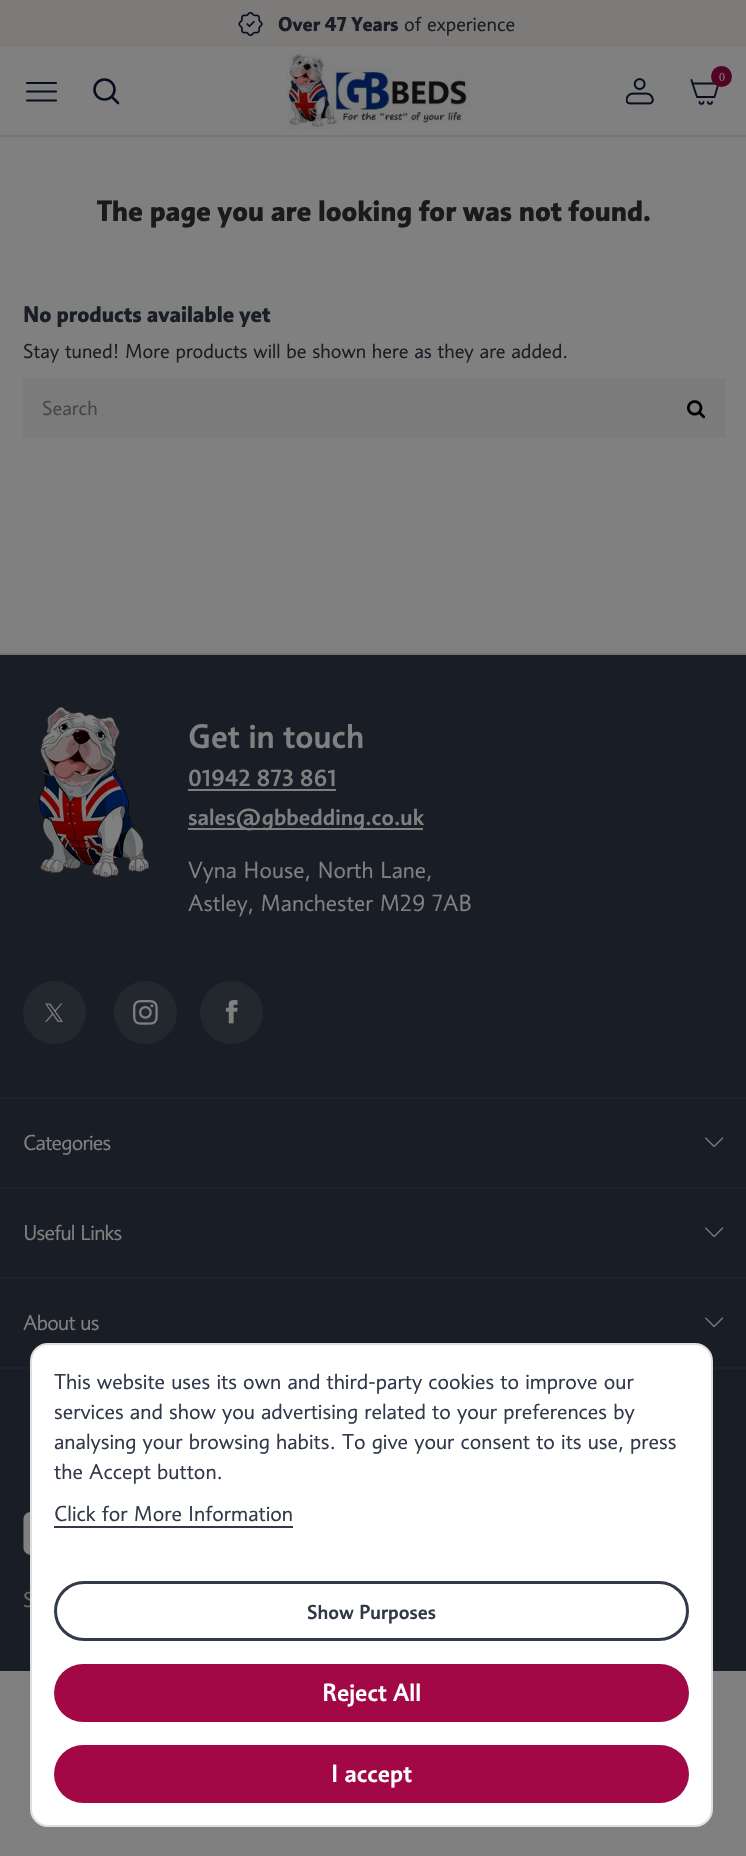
#include "include/core/SkBlurTypes.h"
#include "include/core/SkCanvas.h"
#include "include/core/SkData.h"
#include "include/core/SkFont.h"
#include "include/core/SkFontMgr.h"
#include "include/core/SkImage.h"
#include "include/core/SkMaskFilter.h"
#include "include/core/SkPaint.h"
#include "include/core/SkPathBuilder.h"
#include "include/core/SkTextBlob.h"
#include "include/effects/SkDashPathEffect.h"
#include "include/effects/SkGradientShader.h"
#include "include/utils/SkParsePath.h"

extern sk_sp<SkFontMgr> fontMgr;

static SkFont font(const char* family, int weight, float size, bool italic = false) {
    SkFontStyle style(weight, SkFontStyle::kNormal_Width,
        italic ? SkFontStyle::kItalic_Slant : SkFontStyle::kUpright_Slant);
    SkFont result(fontMgr->matchFamilyStyle(family, style), size);
    result.setSubpixel(true);
    return result;
}

static void drawLabel(SkCanvas* canvas, const char* s, float x, float y, const SkFont& font, SkColor color) {
    SkPaint ink(SkColor4f::FromColor(color));
    ink.setAntiAlias(true);
    canvas->drawString(s, x, y, font, ink);
}

static void drawTracked(SkCanvas* canvas, const char* s, float x, float y, const SkFont& font, const SkPaint& ink, float letter, float word) {
    std::vector<SkGlyphID> glyphs(font.countText(s, strlen(s), SkTextEncoding::kUTF8));
    std::vector<float> xs(glyphs.size());
    font.textToGlyphs(s, strlen(s), SkTextEncoding::kUTF8, glyphs);
    font.getXPos(glyphs, xs, x);
    float extra = 0;
    for (size_t i = 0; i < glyphs.size(); i++) {
        xs[i] += extra;
        extra += letter + word * (glyphs[i] == font.unicharToGlyph(' '));
    }
    canvas->drawTextBlob(SkTextBlob::MakeFromPosHGlyphs(glyphs, xs, y, font), 0, 0, ink);
}

static void fillRect(SkCanvas* canvas, float x, float y, float w, float h, SkColor color) {
    SkPaint ink(SkColor4f::FromColor(color));
    ink.setAntiAlias(true);
    canvas->drawRect(SkRect::MakeXYWH(x, y, w, h), ink);
}

static void fillRRect(SkCanvas* canvas, float x, float y, float w, float h, float radius, SkColor color) {
    SkPaint ink(SkColor4f::FromColor(color));
    ink.setAntiAlias(true);
    canvas->drawRoundRect(SkRect::MakeXYWH(x, y, w, h), radius, radius, ink);
}

static void drawPhoto(SkCanvas* canvas, const char* path, float x, float y, float w, float h) {
    auto image = SkImages::DeferredFromEncodedData(SkData::MakeFromFileName(path));
    canvas->drawImageRect(image, SkRect::MakeXYWH(x, y, w, h), SkSamplingOptions());
}

static SkPath parsePath(const char* data, bool evenOdd = false) {
    SkPath result = *SkParsePath::FromSVGString(data);
    if (evenOdd) result.setFillType(SkPathFillType::kEvenOdd);
    return result;
}

void draw(SkCanvas* canvas) {
    SkPaint paint;
    paint.setAntiAlias(true);
    canvas->clear(0xFF808080);
    fillRect(canvas, 0, 0, 746, 47, 0xFF7D7B7A);
    drawPhoto(canvas, "assets/img1.png", 238, 11, 25, 26);
    SkFont font1 = font("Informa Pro", 700, 19.5f);
    drawLabel(canvas, "Over 47 Years", 278, 31, font1, 0xFF191D25);
    SkFont font2 = font("Informa Pro", 400, 19.5f);
    drawLabel(canvas, "of experience", 404, 31, font2, 0xFF191D25);
    fillRect(canvas, 0, 135, 746, 2, 0xFF73757C);
    paint.setStroke(true);
    paint.setStrokeWidth(2.2f);
    paint.setStrokeCap(SkPaint::kRound_Cap);
    paint.setColor(0xFF070F1F);
    canvas->drawPath(parsePath("M27 83H56M27 91.5H56M27 100.5H56"), paint);
    paint.setStrokeWidth(2.6f);
    paint.setStrokeCap(SkPaint::kButt_Cap);
    canvas->drawCircle(104.5f, 89.5f, 10, paint);
    paint.setStrokeCap(SkPaint::kRound_Cap);
    canvas->drawPath(parsePath("M112 97L118 103"), paint);
    drawPhoto(canvas, "assets/img2.png", 286, 54, 184, 75);
    drawPhoto(canvas, "assets/img3.png", 626, 78, 28, 27);
    paint.setStrokeWidth(1.9f);
    paint.setStrokeJoin(SkPaint::kRound_Join);
    canvas->drawPath(parsePath("M692.5 83.5H718.5L714.5 97H697ZM692.5 83.5L691.5 80M703.5 102C703.5 104.5 699.5 104.5 699.5 102M712 102C712 104.5 708 104.5 708 102"), paint);
    paint.setStroke(false);
    paint.setColor(0xFF510423);
    canvas->drawCircle(721.5f, 76.5f, 10.5f, paint);
    SkFont font3 = font("Liberation Serif", 400, 12);
    drawLabel(canvas, "0", 719, 81, font3, 0xFF808080);
    SkFont font4 = font("Informa Pro", 700, 28.6f);
    drawLabel(canvas, "The page you are looking for was not found.", 97, 221, font4, 0xFF1A1A1A);
    SkFont font5 = font("Informa Pro", 700, 22);
    drawLabel(canvas, "No products available yet", 23, 322, font5, 0xFF191D25);
    drawLabel(canvas, "Stay tuned! More products will be shown here as they are added.", 23, 358, font2, 0xFF191D25);
    fillRect(canvas, 23, 378, 702, 60, 0xFF7B7B7B);
    drawLabel(canvas, "Search", 42, 415, font2, 0xFF454448);
    drawPhoto(canvas, "assets/img4.png", 687, 400, 19, 19);
    fillRect(canvas, 0, 655, 746, 1016, 0xFF191D25);
    fillRect(canvas, 0, 653, 746, 2, 0xFF737373);
    fillRect(canvas, 0, 1367, 746, 2, 0xFF1F2132);
    drawPhoto(canvas, "assets/img5.png", 39, 707, 110, 171);
    SkFont font6 = font("Informa Pro", 500, 33);
    drawLabel(canvas, "Get in touch", 188, 748, font6, 0xFF808080);
    SkFont font7 = font("Informa Pro", 500, 22.5f);
    drawLabel(canvas, "01942 873 861", 188, 786, font7, 0xFF808080);
    fillRect(canvas, 188, 789, 148, 2, 0xFF808080);
    fillRect(canvas, 188, 828, 235, 2, 0xFF808080);
    drawLabel(canvas, "sales@gbbedding.co.uk", 188, 825, font7, 0xFF808080);
    SkFont font8 = font("Informa Pro", 400, 22.5f);
    drawLabel(canvas, "Vyna House, North Lane,", 188, 878, font8, 0xFF808080);
    drawLabel(canvas, "Astley, Manchester M29 7AB", 188, 911, font8, 0xFF808080);
    paint.setColor(0xFF23272E);
    canvas->drawCircle(54.5f, 1012.5f, 31.5f, paint);
    drawPhoto(canvas, "assets/img6.png", 45, 1003, 18, 19);
    canvas->drawCircle(145.5f, 1012.5f, 31.5f, paint);
    drawPhoto(canvas, "assets/img7.png", 133, 1000, 25, 25);
    canvas->drawCircle(231.5f, 1012.5f, 31.5f, paint);
    drawPhoto(canvas, "assets/img8.png", 225, 1000, 13, 24);
    fillRect(canvas, 0, 1097, 746, 2, 0xFF1F2132);
    SkFont font9 = font("Informa Pro", 400, 21);
    paint.setColor(0xFF808080);
    drawTracked(canvas, "Categories", 23, 1150, font9, paint, -0.75f, 0);
    drawPhoto(canvas, "assets/img9.png", 705, 1137, 19, 11);
    fillRect(canvas, 0, 1187, 746, 2, 0xFF1F2132);
    drawTracked(canvas, "Useful Links", 23, 1240, font9, paint, -0.75f, 0);
    drawPhoto(canvas, "assets/img9.png", 705, 1227, 19, 11);
    fillRect(canvas, 0, 1277, 746, 2, 0xFF1F2132);
    drawTracked(canvas, "About us", 23, 1330, font9, paint, -0.75f, 0);
    drawPhoto(canvas, "assets/img9.png", 705, 1317, 19, 11);
    drawLabel(canvas, "S", 23, 1607, font9, 0xFF696969);
    paint.setColor(0xFFFFFFFF);
    canvas->drawRoundRect(SkRect::MakeXYWH(31, 1344, 681, 482), 17, 17, paint);
    paint.setStroke(true);
    paint.setStrokeWidth(2);
    paint.setStrokeCap(SkPaint::kButt_Cap);
    paint.setStrokeJoin(SkPaint::kMiter_Join);
    paint.setColor(0xFFDEDEDE);
    canvas->drawRoundRect(SkRect::MakeXYWH(31, 1344, 681, 482), 17, 17, paint);
    drawLabel(canvas, "This website uses its own and third-party cookies to improve our", 54, 1389, font9, 0xFF31394A);
    drawLabel(canvas, "services and show you advertising related to your preferences by", 54, 1419, font9, 0xFF31394A);
    drawLabel(canvas, "analysing your browsing habits. To give your consent to its use, press", 54, 1449, font9, 0xFF31394A);
    drawLabel(canvas, "the Accept button.", 54, 1479, font9, 0xFF31394A);
    drawLabel(canvas, "Click for More Information", 54, 1521, font9, 0xFF31394A);
    fillRect(canvas, 54, 1526, 239, 2, 0xFF31394A);
    paint.setStrokeWidth(3);
    paint.setColor(0xFF31394A);
    canvas->drawRoundRect(SkRect::MakeXYWH(55.5f, 1582.5f, 632, 57), 28.5f, 28.5f, paint);
    SkFont font10 = font("Informa Pro", 500, 19.5f);
    drawLabel(canvas, "Show Purposes", 307, 1619, font10, 0xFF31394A);
    fillRRect(canvas, 54, 1664, 635, 58, 29, 0xFFA10845);
    SkFont font11 = font("Informa Pro", 500, 24);
    drawLabel(canvas, "Reject All", 322, 1701, font11, 0xFFFFFFFF);
    fillRRect(canvas, 54, 1745, 635, 58, 29, 0xFFA10845);
    drawLabel(canvas, "I accept", 331, 1782, font11, 0xFFFFFFFF);
    drawPhoto(canvas, "assets/img10.png", 23, 1512, 7, 43);
}
